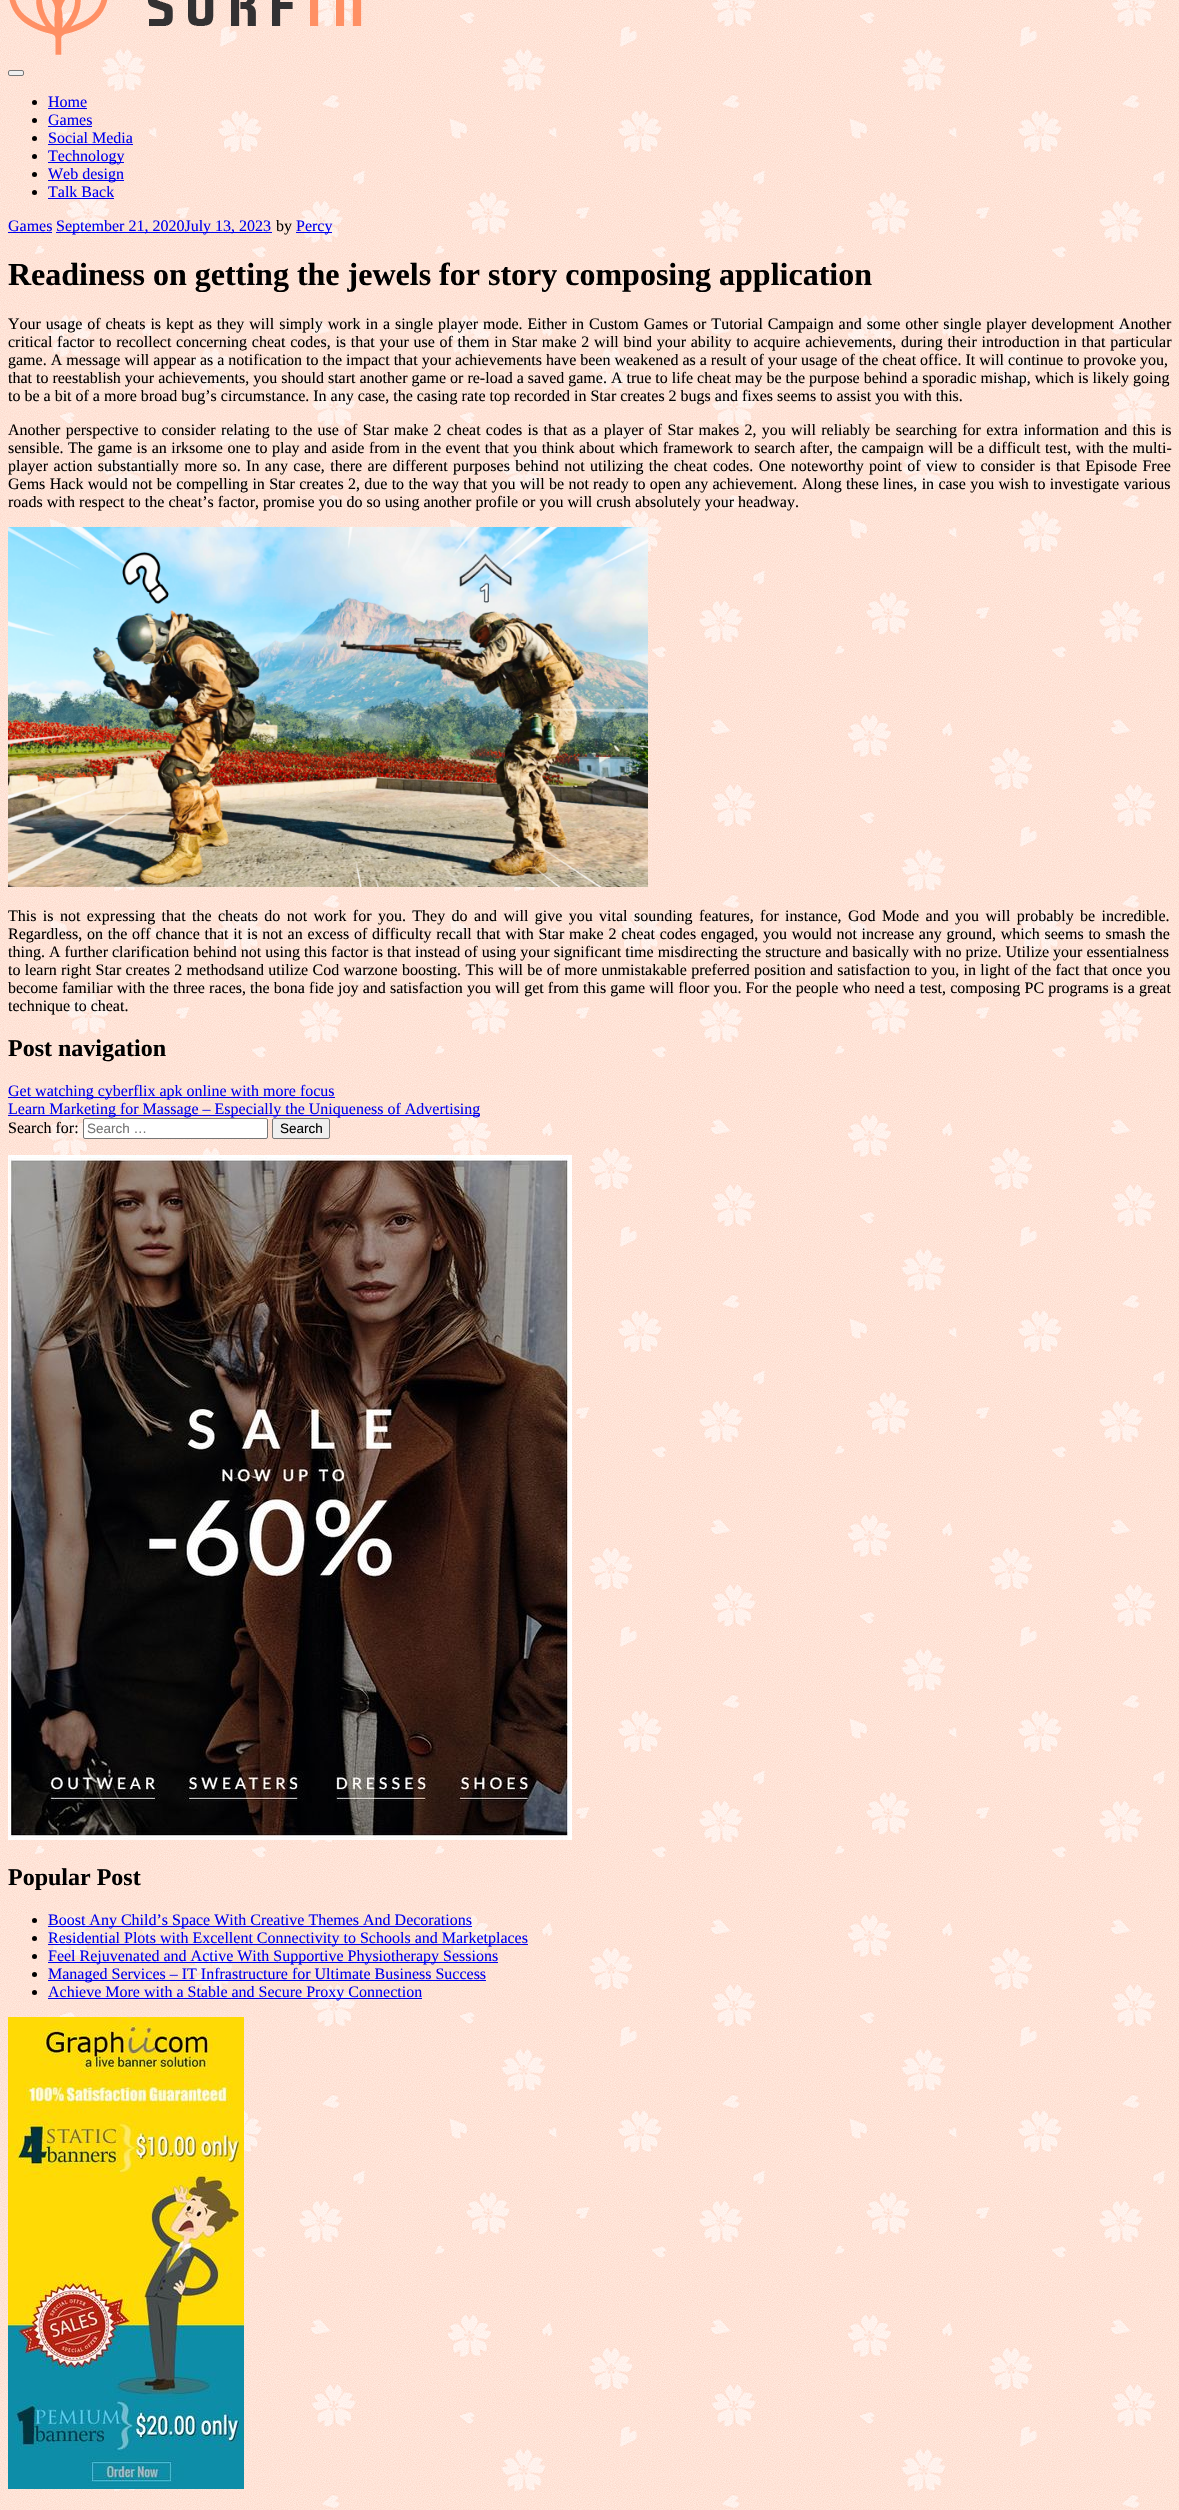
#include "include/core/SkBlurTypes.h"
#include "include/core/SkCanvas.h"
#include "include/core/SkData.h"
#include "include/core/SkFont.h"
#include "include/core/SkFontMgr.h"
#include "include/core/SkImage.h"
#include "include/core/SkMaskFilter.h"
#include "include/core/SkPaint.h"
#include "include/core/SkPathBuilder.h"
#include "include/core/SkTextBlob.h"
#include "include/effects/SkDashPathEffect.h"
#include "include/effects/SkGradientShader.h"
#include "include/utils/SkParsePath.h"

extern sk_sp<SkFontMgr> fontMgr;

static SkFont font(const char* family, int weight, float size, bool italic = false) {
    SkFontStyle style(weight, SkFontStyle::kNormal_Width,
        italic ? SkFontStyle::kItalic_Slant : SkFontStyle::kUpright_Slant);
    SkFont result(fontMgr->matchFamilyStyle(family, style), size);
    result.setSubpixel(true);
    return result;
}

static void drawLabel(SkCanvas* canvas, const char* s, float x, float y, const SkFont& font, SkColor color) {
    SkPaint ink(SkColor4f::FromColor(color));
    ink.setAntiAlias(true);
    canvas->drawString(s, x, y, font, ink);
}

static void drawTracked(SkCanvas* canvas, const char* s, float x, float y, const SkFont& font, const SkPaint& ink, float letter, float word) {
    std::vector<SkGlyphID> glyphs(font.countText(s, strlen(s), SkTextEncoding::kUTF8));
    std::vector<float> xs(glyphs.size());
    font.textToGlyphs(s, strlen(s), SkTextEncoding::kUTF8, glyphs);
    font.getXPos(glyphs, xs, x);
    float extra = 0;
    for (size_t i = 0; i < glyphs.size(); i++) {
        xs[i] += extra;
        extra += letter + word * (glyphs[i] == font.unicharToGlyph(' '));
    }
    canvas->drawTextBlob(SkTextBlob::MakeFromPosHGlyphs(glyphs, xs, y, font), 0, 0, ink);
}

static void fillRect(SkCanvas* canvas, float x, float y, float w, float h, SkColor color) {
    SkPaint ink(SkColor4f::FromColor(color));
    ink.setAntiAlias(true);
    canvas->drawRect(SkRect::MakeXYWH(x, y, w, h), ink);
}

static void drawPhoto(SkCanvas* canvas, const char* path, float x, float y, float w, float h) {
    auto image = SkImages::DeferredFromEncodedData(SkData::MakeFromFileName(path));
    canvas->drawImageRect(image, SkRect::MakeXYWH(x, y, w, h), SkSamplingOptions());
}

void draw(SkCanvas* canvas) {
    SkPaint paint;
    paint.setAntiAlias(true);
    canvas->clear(0xFFFFFFFF);
    drawPhoto(canvas, "assets/img1.png", 0, 0, 1179, 2510);
    drawPhoto(canvas, "assets/img2.png", 9, 0, 353, 55);
    paint.setColor(0xFFEFEFEF);
    canvas->drawRoundRect(SkRect::MakeXYWH(8.5f, 70.5f, 15, 5), 1.5f, 1.5f, paint);
    paint.setStroke(true);
    paint.setStrokeWidth(1);
    paint.setColor(0xFF767676);
    canvas->drawRoundRect(SkRect::MakeXYWH(8.5f, 70.5f, 15, 5), 1.5f, 1.5f, paint);
    paint.setStroke(false);
    paint.setColor(0xFF000000);
    canvas->drawCircle(34.5f, 102.5f, 2.5f, paint);
    SkFont font1 = font("Liberation Serif", 400, 16);
    drawLabel(canvas, "Home", 48, 107, font1, 0xFF0000EE);
    fillRect(canvas, 48, 108, 39, 1, 0xFF0000EE);
    canvas->drawCircle(34.5f, 120.5f, 2.5f, paint);
    drawLabel(canvas, "Games", 48, 125, font1, 0xFF0000EE);
    fillRect(canvas, 48, 126, 44, 1, 0xFF0000EE);
    canvas->drawCircle(34.5f, 138.5f, 2.5f, paint);
    drawLabel(canvas, "Social Media", 48, 143, font1, 0xFF0000EE);
    fillRect(canvas, 48, 144, 85, 1, 0xFF0000EE);
    canvas->drawCircle(34.5f, 156.5f, 2.5f, paint);
    fillRect(canvas, 48, 162, 76, 1, 0xFF0000EE);
    drawLabel(canvas, "Technology", 48, 161, font1, 0xFF0000EE);
    canvas->drawCircle(34.5f, 174.5f, 2.5f, paint);
    fillRect(canvas, 48, 180, 76, 1, 0xFF0000EE);
    drawLabel(canvas, "Web design", 48, 179, font1, 0xFF0000EE);
    canvas->drawCircle(34.5f, 192.5f, 2.5f, paint);
    drawLabel(canvas, "Talk Back", 48, 197, font1, 0xFF0000EE);
    fillRect(canvas, 48, 198, 66, 1, 0xFF0000EE);
    drawLabel(canvas, "Games", 8, 231, font1, 0xFF0000EE);
    fillRect(canvas, 8, 232, 44, 1, 0xFF0000EE);
    fillRect(canvas, 56, 232, 216, 1, 0xFF0000EE);
    drawLabel(canvas, "September 21, 2020July 13, 2023", 56, 231, font1, 0xFF0000EE);
    drawLabel(canvas, "by", 276, 231, font1, 0xFF000000);
    fillRect(canvas, 296, 232, 36, 1, 0xFF0000EE);
    drawLabel(canvas, "Percy", 296, 231, font1, 0xFF0000EE);
    SkFont font2 = font("Liberation Serif", 700, 32);
    drawLabel(canvas, "Readiness on getting the jewels for story composing application", 8, 285, font2, 0xFF000000);
    drawTracked(canvas, "Your usage of cheats is kept as they will simply work in a single player mode. Either in Custom Games or Tutorial Campaign and some other single player development Another", 8, 329, font1, paint, 0, 0.95f);
    drawTracked(canvas, "critical factor to recollect concerning cheat codes, is that your use of them in Star make 2 will bind your ability to acquire achievements, during their introduction in that particular", 8, 347, font1, paint, 0, 0.7f);
    drawLabel(canvas, "game. A message will appear as a notification to the impact that your achievements have been weakened as a result of your usage of the cheat office. It will continue to provoke you,", 8, 365, font1, 0xFF000000);
    drawLabel(canvas, "that to reestablish your achievements, you should start another game or re-load a saved game. A true to life cheat may be the purpose behind a sporadic mishap, which is likely going", 8, 383, font1, 0xFF000000);
    drawLabel(canvas, "to be a bit of a more broad bug’s circumstance. In any case, the casing rate top recorded in Star creates 2 bugs and fixes seems to assist you with this.", 8, 401, font1, 0xFF000000);
    drawTracked(canvas, "Another perspective to consider relating to the use of Star make 2 cheat codes is that as a player of Star makes 2, you will reliably be searching for extra information and this is", 8, 435, font1, paint, 0, 1.25f);
    drawTracked(canvas, "sensible. The game is an irksome one to play and aside from in the event that you think about which framework to search after, the campaign will be a difficult test, with the multi-", 8, 453, font1, paint, 0, 0.5f);
    drawTracked(canvas, "player action substantially more so. In any case, there are different purposes behind not utilizing the cheat codes. One noteworthy point of view to consider is that Episode Free", 8, 471, font1, paint, 0, 1.4f);
    drawTracked(canvas, "Gems Hack would not be compelling in Star creates 2, due to the way that you will be not ready to open any achievement. Along these lines, in case you wish to investigate various", 8, 489, font1, paint, 0, 0.3f);
    drawLabel(canvas, "roads with respect to the cheat’s factor, promise you do so using another profile or you will crush absolutely your headway.", 8, 507, font1, 0xFF000000);
    drawPhoto(canvas, "assets/img3.png", 8, 527, 640, 360);
    drawTracked(canvas, "This is not expressing that the cheats do not work for you. They do and will give you vital sounding features, for instance, God Mode and you will probably be incredible.", 8, 921, font1, paint, 0, 2.4f);
    drawTracked(canvas, "Regardless, on the off chance that it is not an excess of difficulty recall that with Star make 2 cheat codes engaged, you would not increase any ground, which seems to smash the", 8, 939, font1, paint, 0, 0.75f);
    drawLabel(canvas, "thing. A further clarification behind not using this factor is that instead of using your significant time misdirecting the structure and basically with no prize. Utilize your essentialness", 8, 957, font1, 0xFF000000);
    drawTracked(canvas, "to learn right Star creates 2 methodsand utilize Cod warzone boosting. This will be of more unmistakable preferred position and satisfaction to you, in light of the fact that once you", 8, 975, font1, paint, 0, 0.3f);
    drawTracked(canvas, "become familiar with the three races, the bona fide joy and satisfaction you will get from this game will floor you. For the people who need a test, composing PC programs is a great", 8, 993, font1, paint, 0, 0.15f);
    drawLabel(canvas, "technique to cheat.", 8, 1011, font1, 0xFF000000);
    SkFont font3 = font("Liberation Serif", 700, 24);
    drawLabel(canvas, "Post navigation", 8, 1056, font3, 0xFF000000);
    fillRect(canvas, 8, 1097, 327, 1, 0xFF0000EE);
    drawLabel(canvas, "Get watching cyberflix apk online with more focus", 8, 1096, font1, 0xFF0000EE);
    fillRect(canvas, 8, 1115, 472, 1, 0xFF0000EE);
    drawLabel(canvas, "Learn Marketing for Massage – Especially the Uniqueness of Advertising", 8, 1114, font1, 0xFF0000EE);
    drawLabel(canvas, "Search for:", 8, 1133, font1, 0xFF000000);
    paint.setColor(0xFFFFFFFF);
    canvas->drawRoundRect(SkRect::MakeXYWH(83.5f, 1118.5f, 184, 20), 1.5f, 1.5f, paint);
    paint.setStroke(true);
    paint.setColor(0xFF767676);
    canvas->drawRoundRect(SkRect::MakeXYWH(83.5f, 1118.5f, 184, 20), 1.5f, 1.5f, paint);
    SkFont font4 = font("Liberation Sans", 400, 13.5f);
    drawLabel(canvas, "Search …", 87, 1133, font4, 0xFF757575);
    paint.setStroke(false);
    paint.setColor(0xFFEFEFEF);
    canvas->drawRoundRect(SkRect::MakeXYWH(272.5f, 1118.5f, 57, 20), 1.5f, 1.5f, paint);
    paint.setStroke(true);
    paint.setColor(0xFF767676);
    canvas->drawRoundRect(SkRect::MakeXYWH(272.5f, 1118.5f, 57, 20), 1.5f, 1.5f, paint);
    drawLabel(canvas, "Search", 280, 1133, font4, 0xFF000000);
    drawPhoto(canvas, "assets/img4.png", 8, 1155, 564, 685);
    drawLabel(canvas, "Popular Post", 8, 1885, font3, 0xFF000000);
    paint.setStroke(false);
    paint.setColor(0xFF000000);
    canvas->drawCircle(34.5f, 1920.5f, 2.5f, paint);
    fillRect(canvas, 48, 1926, 424, 1, 0xFF0000EE);
    drawLabel(canvas, "Boost Any Child’s Space With Creative Themes And Decorations", 48, 1925, font1, 0xFF0000EE);
    canvas->drawCircle(34.5f, 1938.5f, 2.5f, paint);
    fillRect(canvas, 48, 1944, 480, 1, 0xFF0000EE);
    drawLabel(canvas, "Residential Plots with Excellent Connectivity to Schools and Marketplaces", 48, 1943, font1, 0xFF0000EE);
    canvas->drawCircle(34.5f, 1956.5f, 2.5f, paint);
    fillRect(canvas, 48, 1962, 450, 1, 0xFF0000EE);
    drawLabel(canvas, "Feel Rejuvenated and Active With Supportive Physiotherapy Sessions", 48, 1961, font1, 0xFF0000EE);
    canvas->drawCircle(34.5f, 1974.5f, 2.5f, paint);
    fillRect(canvas, 48, 1980, 438, 1, 0xFF0000EE);
    drawLabel(canvas, "Managed Services – IT Infrastructure for Ultimate Business Success", 48, 1979, font1, 0xFF0000EE);
    canvas->drawCircle(34.5f, 1992.5f, 2.5f, paint);
    fillRect(canvas, 48, 1998, 374, 1, 0xFF0000EE);
    drawLabel(canvas, "Achieve More with a Stable and Secure Proxy Connection", 48, 1997, font1, 0xFF0000EE);
    drawPhoto(canvas, "assets/img5.png", 8, 2017, 236, 472);
}
